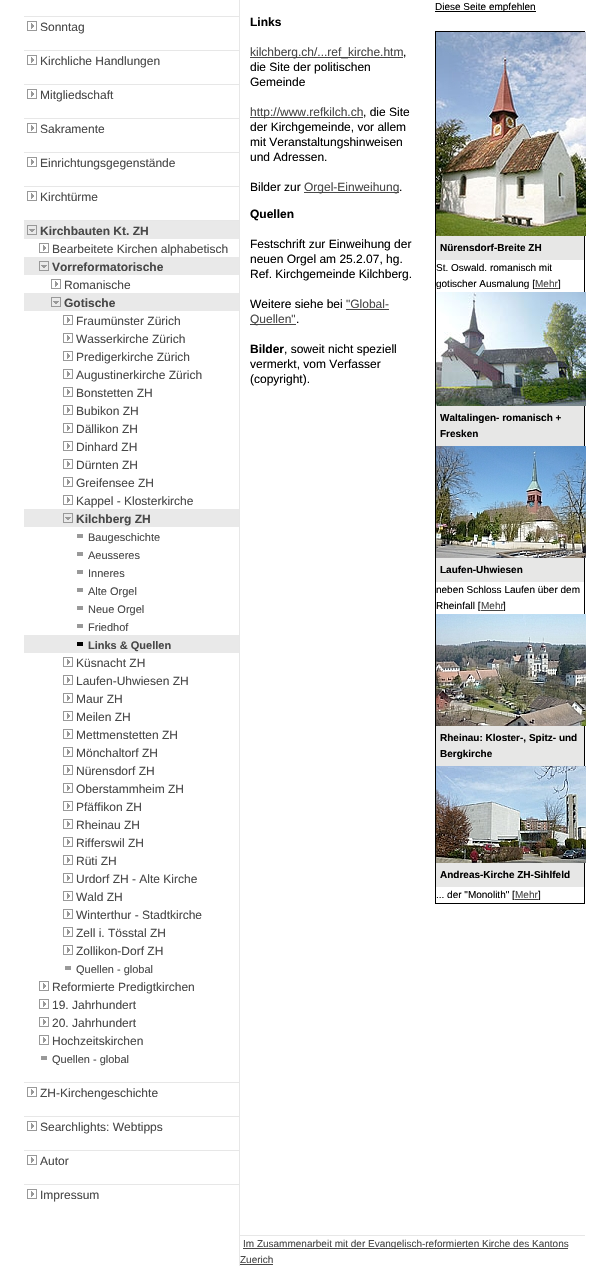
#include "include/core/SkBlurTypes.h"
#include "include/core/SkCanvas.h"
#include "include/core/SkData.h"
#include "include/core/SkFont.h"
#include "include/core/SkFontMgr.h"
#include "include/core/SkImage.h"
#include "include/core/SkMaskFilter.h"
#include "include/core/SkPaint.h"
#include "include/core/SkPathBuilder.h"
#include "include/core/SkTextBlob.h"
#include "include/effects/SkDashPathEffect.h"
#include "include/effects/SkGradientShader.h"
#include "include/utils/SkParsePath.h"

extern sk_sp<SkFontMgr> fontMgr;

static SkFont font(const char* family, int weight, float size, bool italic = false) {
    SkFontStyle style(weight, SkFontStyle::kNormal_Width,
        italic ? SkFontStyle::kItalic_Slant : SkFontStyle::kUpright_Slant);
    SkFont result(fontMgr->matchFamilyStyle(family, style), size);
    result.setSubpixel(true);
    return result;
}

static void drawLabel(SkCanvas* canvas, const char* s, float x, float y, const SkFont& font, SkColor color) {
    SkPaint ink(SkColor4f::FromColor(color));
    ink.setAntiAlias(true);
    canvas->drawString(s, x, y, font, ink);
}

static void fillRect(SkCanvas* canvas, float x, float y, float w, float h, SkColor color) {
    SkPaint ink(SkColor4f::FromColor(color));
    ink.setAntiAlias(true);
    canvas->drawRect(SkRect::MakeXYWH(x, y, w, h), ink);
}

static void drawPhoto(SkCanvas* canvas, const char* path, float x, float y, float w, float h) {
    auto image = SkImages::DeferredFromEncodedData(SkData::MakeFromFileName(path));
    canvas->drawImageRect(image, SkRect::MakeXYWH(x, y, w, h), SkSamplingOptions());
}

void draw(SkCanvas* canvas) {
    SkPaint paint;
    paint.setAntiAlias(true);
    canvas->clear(0xFFFFFFFF);
    fillRect(canvas, 24, 16, 215, 1, 0xFFE7E7E7);
    drawPhoto(canvas, "assets/img1.png", 27, 21, 10, 10);
    SkFont font1 = font("Liberation Sans", 400, 12);
    drawLabel(canvas, "Sonntag", 40, 31, font1, 0xFF484848);
    fillRect(canvas, 24, 50, 215, 1, 0xFFE7E7E7);
    drawPhoto(canvas, "assets/img1.png", 27, 55, 10, 10);
    drawLabel(canvas, "Kirchliche Handlungen", 40, 65, font1, 0xFF484848);
    fillRect(canvas, 24, 84, 215, 1, 0xFFE7E7E7);
    drawPhoto(canvas, "assets/img1.png", 27, 89, 10, 10);
    drawLabel(canvas, "Mitgliedschaft", 40, 99, font1, 0xFF484848);
    fillRect(canvas, 24, 118, 215, 1, 0xFFE7E7E7);
    drawPhoto(canvas, "assets/img1.png", 27, 123, 10, 10);
    drawLabel(canvas, "Sakramente", 40, 133, font1, 0xFF484848);
    fillRect(canvas, 24, 152, 215, 1, 0xFFE7E7E7);
    drawPhoto(canvas, "assets/img1.png", 27, 157, 10, 10);
    drawLabel(canvas, "Einrichtungsgegenstände", 40, 167, font1, 0xFF484848);
    fillRect(canvas, 24, 186, 215, 1, 0xFFE7E7E7);
    drawPhoto(canvas, "assets/img1.png", 27, 191, 10, 10);
    drawLabel(canvas, "Kirchtürme", 40, 201, font1, 0xFF484848);
    fillRect(canvas, 24, 220, 215, 1, 0xFFE7E7E7);
    fillRect(canvas, 24, 221, 215, 18, 0xFFE9E9E9);
    drawPhoto(canvas, "assets/img2.png", 27, 225, 10, 10);
    SkFont font2 = font("Liberation Sans", 700, 12);
    drawLabel(canvas, "Kirchbauten Kt. ZH", 40, 235, font2, 0xFF484848);
    drawPhoto(canvas, "assets/img1.png", 39, 243, 10, 10);
    drawLabel(canvas, "Bearbeitete Kirchen alphabetisch", 52, 253, font1, 0xFF484848);
    fillRect(canvas, 24, 257, 215, 18, 0xFFE9E9E9);
    drawPhoto(canvas, "assets/img2.png", 39, 261, 10, 10);
    drawLabel(canvas, "Vorreformatorische", 52, 271, font2, 0xFF484848);
    drawPhoto(canvas, "assets/img1.png", 51, 279, 10, 10);
    drawLabel(canvas, "Romanische", 64, 289, font1, 0xFF484848);
    fillRect(canvas, 24, 293, 215, 18, 0xFFE9E9E9);
    drawPhoto(canvas, "assets/img2.png", 51, 297, 10, 10);
    drawLabel(canvas, "Gotische", 64, 307, font2, 0xFF484848);
    drawPhoto(canvas, "assets/img1.png", 63, 315, 10, 10);
    drawLabel(canvas, "Fraumünster Zürich", 76, 325, font1, 0xFF484848);
    drawPhoto(canvas, "assets/img1.png", 63, 333, 10, 10);
    drawLabel(canvas, "Wasserkirche Zürich", 76, 343, font1, 0xFF484848);
    drawPhoto(canvas, "assets/img1.png", 63, 351, 10, 10);
    drawLabel(canvas, "Predigerkirche Zürich", 76, 361, font1, 0xFF484848);
    drawPhoto(canvas, "assets/img1.png", 63, 369, 10, 10);
    drawLabel(canvas, "Augustinerkirche Zürich", 76, 379, font1, 0xFF484848);
    drawPhoto(canvas, "assets/img1.png", 63, 387, 10, 10);
    drawLabel(canvas, "Bonstetten ZH", 76, 397, font1, 0xFF484848);
    drawPhoto(canvas, "assets/img1.png", 63, 405, 10, 10);
    drawLabel(canvas, "Bubikon ZH", 76, 415, font1, 0xFF484848);
    drawPhoto(canvas, "assets/img1.png", 63, 423, 10, 10);
    drawLabel(canvas, "Dällikon ZH", 76, 433, font1, 0xFF484848);
    drawPhoto(canvas, "assets/img1.png", 63, 441, 10, 10);
    drawLabel(canvas, "Dinhard ZH", 76, 451, font1, 0xFF484848);
    drawPhoto(canvas, "assets/img1.png", 63, 459, 10, 10);
    drawLabel(canvas, "Dürnten ZH", 76, 469, font1, 0xFF484848);
    drawPhoto(canvas, "assets/img1.png", 63, 477, 10, 10);
    drawLabel(canvas, "Greifensee ZH", 76, 487, font1, 0xFF484848);
    drawPhoto(canvas, "assets/img1.png", 63, 495, 10, 10);
    drawLabel(canvas, "Kappel - Klosterkirche", 76, 505, font1, 0xFF484848);
    fillRect(canvas, 24, 509, 215, 18, 0xFFE9E9E9);
    drawPhoto(canvas, "assets/img2.png", 63, 513, 10, 10);
    drawLabel(canvas, "Kilchberg ZH", 76, 523, font2, 0xFF484848);
    SkFont font3 = font("Liberation Sans", 400, 11);
    drawLabel(canvas, "Baugeschichte", 88, 541, font3, 0xFF484848);
    fillRect(canvas, 77, 534, 6, 4, 0xFF999999);
    drawLabel(canvas, "Aeusseres", 88, 559, font3, 0xFF484848);
    fillRect(canvas, 77, 552, 6, 4, 0xFF999999);
    drawLabel(canvas, "Inneres", 88, 577, font3, 0xFF484848);
    fillRect(canvas, 77, 570, 6, 4, 0xFF999999);
    drawLabel(canvas, "Alte Orgel", 88, 595, font3, 0xFF484848);
    fillRect(canvas, 77, 588, 6, 4, 0xFF999999);
    drawLabel(canvas, "Neue Orgel", 88, 613, font3, 0xFF484848);
    fillRect(canvas, 77, 606, 6, 4, 0xFF999999);
    drawLabel(canvas, "Friedhof", 88, 631, font3, 0xFF484848);
    fillRect(canvas, 77, 624, 6, 4, 0xFF999999);
    fillRect(canvas, 24, 635, 215, 18, 0xFFE9E9E9);
    SkFont font4 = font("Liberation Sans", 700, 11);
    drawLabel(canvas, "Links & Quellen", 88, 649, font4, 0xFF484848);
    fillRect(canvas, 77, 642, 6, 4, 0xFF000000);
    drawPhoto(canvas, "assets/img1.png", 63, 657, 10, 10);
    drawLabel(canvas, "Küsnacht ZH", 76, 667, font1, 0xFF484848);
    drawPhoto(canvas, "assets/img1.png", 63, 675, 10, 10);
    drawLabel(canvas, "Laufen-Uhwiesen ZH", 76, 685, font1, 0xFF484848);
    drawPhoto(canvas, "assets/img1.png", 63, 693, 10, 10);
    drawLabel(canvas, "Maur ZH", 76, 703, font1, 0xFF484848);
    drawPhoto(canvas, "assets/img1.png", 63, 711, 10, 10);
    drawLabel(canvas, "Meilen ZH", 76, 721, font1, 0xFF484848);
    drawPhoto(canvas, "assets/img1.png", 63, 729, 10, 10);
    drawLabel(canvas, "Mettmenstetten ZH", 76, 739, font1, 0xFF484848);
    drawPhoto(canvas, "assets/img1.png", 63, 747, 10, 10);
    drawLabel(canvas, "Mönchaltorf ZH", 76, 757, font1, 0xFF484848);
    drawPhoto(canvas, "assets/img1.png", 63, 765, 10, 10);
    drawLabel(canvas, "Nürensdorf ZH", 76, 775, font1, 0xFF484848);
    drawPhoto(canvas, "assets/img1.png", 63, 783, 10, 10);
    drawLabel(canvas, "Oberstammheim ZH", 76, 793, font1, 0xFF484848);
    drawPhoto(canvas, "assets/img1.png", 63, 801, 10, 10);
    drawLabel(canvas, "Pfäffikon ZH", 76, 811, font1, 0xFF484848);
    drawPhoto(canvas, "assets/img1.png", 63, 819, 10, 10);
    drawLabel(canvas, "Rheinau ZH", 76, 829, font1, 0xFF484848);
    drawPhoto(canvas, "assets/img1.png", 63, 837, 10, 10);
    drawLabel(canvas, "Rifferswil ZH", 76, 847, font1, 0xFF484848);
    drawPhoto(canvas, "assets/img1.png", 63, 855, 10, 10);
    drawLabel(canvas, "Rüti ZH", 76, 865, font1, 0xFF484848);
    drawPhoto(canvas, "assets/img1.png", 63, 873, 10, 10);
    drawLabel(canvas, "Urdorf ZH - Alte Kirche", 76, 883, font1, 0xFF484848);
    drawPhoto(canvas, "assets/img1.png", 63, 891, 10, 10);
    drawLabel(canvas, "Wald ZH", 76, 901, font1, 0xFF484848);
    drawPhoto(canvas, "assets/img1.png", 63, 909, 10, 10);
    drawLabel(canvas, "Winterthur - Stadtkirche", 76, 919, font1, 0xFF484848);
    drawPhoto(canvas, "assets/img1.png", 63, 927, 10, 10);
    drawLabel(canvas, "Zell i. Tösstal ZH", 76, 937, font1, 0xFF484848);
    drawPhoto(canvas, "assets/img1.png", 63, 945, 10, 10);
    drawLabel(canvas, "Zollikon-Dorf ZH", 76, 955, font1, 0xFF484848);
    drawLabel(canvas, "Quellen - global", 76, 973, font3, 0xFF484848);
    fillRect(canvas, 65, 966, 6, 4, 0xFF999999);
    drawPhoto(canvas, "assets/img1.png", 39, 981, 10, 10);
    drawLabel(canvas, "Reformierte Predigtkirchen", 52, 991, font1, 0xFF484848);
    drawPhoto(canvas, "assets/img1.png", 39, 999, 10, 10);
    drawLabel(canvas, "19. Jahrhundert", 52, 1009, font1, 0xFF484848);
    drawPhoto(canvas, "assets/img1.png", 39, 1017, 10, 10);
    drawLabel(canvas, "20. Jahrhundert", 52, 1027, font1, 0xFF484848);
    drawPhoto(canvas, "assets/img1.png", 39, 1035, 10, 10);
    drawLabel(canvas, "Hochzeitskirchen", 52, 1045, font1, 0xFF484848);
    drawLabel(canvas, "Quellen - global", 52, 1063, font3, 0xFF484848);
    fillRect(canvas, 41, 1056, 6, 4, 0xFF999999);
    fillRect(canvas, 24, 1082, 215, 1, 0xFFE7E7E7);
    drawPhoto(canvas, "assets/img1.png", 27, 1087, 10, 10);
    drawLabel(canvas, "ZH-Kirchengeschichte", 40, 1097, font1, 0xFF484848);
    fillRect(canvas, 24, 1116, 215, 1, 0xFFE7E7E7);
    drawPhoto(canvas, "assets/img1.png", 27, 1121, 10, 10);
    drawLabel(canvas, "Searchlights: Webtipps", 40, 1131, font1, 0xFF484848);
    fillRect(canvas, 24, 1150, 215, 1, 0xFFE7E7E7);
    drawPhoto(canvas, "assets/img1.png", 27, 1155, 10, 10);
    drawLabel(canvas, "Autor", 40, 1165, font1, 0xFF484848);
    fillRect(canvas, 24, 1184, 215, 1, 0xFFE7E7E7);
    drawPhoto(canvas, "assets/img1.png", 27, 1189, 10, 10);
    drawLabel(canvas, "Impressum", 40, 1199, font1, 0xFF484848);
    fillRect(canvas, 239, 0, 1, 1266, 0xFFE7E7E7);
    drawLabel(canvas, "Links", 250, 26, font2, 0xFF000000);
    fillRect(canvas, 250, 57, 153, 1, 0xFF484848);
    drawLabel(canvas, "kilchberg.ch/...ref_kirche.htm", 250, 56, font1, 0xFF484848);
    drawLabel(canvas, ",", 403, 56, font1, 0xFF000000);
    drawLabel(canvas, "die Site der politischen", 250, 71, font1, 0xFF000000);
    drawLabel(canvas, "Gemeinde", 250, 86, font1, 0xFF000000);
    fillRect(canvas, 250, 117, 113, 1, 0xFF484848);
    drawLabel(canvas, "http://www.refkilch.ch", 250, 116, font1, 0xFF484848);
    drawLabel(canvas, ", die Site", 363, 116, font1, 0xFF000000);
    drawLabel(canvas, "der Kirchgemeinde, vor allem", 250, 131, font1, 0xFF000000);
    drawLabel(canvas, "mit Veranstaltungshinweisen", 250, 146, font1, 0xFF000000);
    drawLabel(canvas, "und Adressen.", 250, 161, font1, 0xFF000000);
    drawLabel(canvas, "Bilder zur", 250, 191, font1, 0xFF000000);
    fillRect(canvas, 304, 192, 95, 1, 0xFF484848);
    drawLabel(canvas, "Orgel-Einweihung", 304, 191, font1, 0xFF484848);
    drawLabel(canvas, ".", 399, 191, font1, 0xFF000000);
    drawLabel(canvas, "Quellen", 250, 218, font2, 0xFF000000);
    drawLabel(canvas, "Festschrift zur Einweihung der", 250, 248, font1, 0xFF000000);
    drawLabel(canvas, "neuen Orgel am 25.2.07, hg.", 250, 263, font1, 0xFF000000);
    drawLabel(canvas, "Ref. Kirchgemeinde Kilchberg.", 250, 278, font1, 0xFF000000);
    drawLabel(canvas, "Weitere siehe bei", 250, 308, font1, 0xFF000000);
    drawLabel(canvas, "\"Global-", 346, 308, font1, 0xFF484848);
    fillRect(canvas, 346, 309, 43, 1, 0xFF484848);
    fillRect(canvas, 250, 324, 46, 1, 0xFF484848);
    drawLabel(canvas, "Quellen\"", 250, 323, font1, 0xFF484848);
    drawLabel(canvas, ".", 296, 323, font1, 0xFF000000);
    drawLabel(canvas, "Bilder", 250, 353, font2, 0xFF000000);
    drawLabel(canvas, ", soweit nicht speziell", 284, 353, font1, 0xFF000000);
    drawLabel(canvas, "vermerkt, vom Verfasser", 250, 368, font1, 0xFF000000);
    drawLabel(canvas, "(copyright).", 250, 383, font1, 0xFF000000);
    fillRect(canvas, 435, 11, 101, 1, 0xFF000000);
    SkFont font5 = font("Liberation Sans", 400, 10);
    drawLabel(canvas, "Diese Seite empfehlen", 435, 10, font5, 0xFF000000);
    fillRect(canvas, 435, 31, 150, 873, 0xFF000000);
    fillRect(canvas, 436, 236, 148, 24, 0xFFE7E7E6);
    drawPhoto(canvas, "assets/img3.png", 436, 32, 150, 204);
    SkFont font6 = font("Liberation Sans", 700, 10);
    drawLabel(canvas, "Nürensdorf-Breite ZH", 440, 251, font6, 0xFF000000);
    fillRect(canvas, 436, 260, 148, 32, 0xFFFFFFFF);
    drawLabel(canvas, "St. Oswald. romanisch mit", 436, 271, font5, 0xFF000000);
    drawLabel(canvas, "gotischer Ausmalung [", 436, 287, font5, 0xFF000000);
    drawLabel(canvas, "Mehr", 535, 287, font5, 0xFF484848);
    fillRect(canvas, 535, 288, 23, 1, 0xFF484848);
    drawLabel(canvas, "]", 558, 287, font5, 0xFF000000);
    fillRect(canvas, 436, 406, 148, 40, 0xFFE7E7E6);
    drawPhoto(canvas, "assets/img4.png", 436, 292, 150, 114);
    drawLabel(canvas, "Waltalingen- romanisch +", 440, 421, font6, 0xFF000000);
    drawLabel(canvas, "Fresken", 440, 437, font6, 0xFF000000);
    fillRect(canvas, 436, 558, 148, 24, 0xFFE7E7E6);
    drawPhoto(canvas, "assets/img5.png", 436, 446, 150, 112);
    drawLabel(canvas, "Laufen-Uhwiesen", 440, 573, font6, 0xFF000000);
    fillRect(canvas, 436, 582, 148, 32, 0xFFFFFFFF);
    drawLabel(canvas, "neben Schloss Laufen über dem", 436, 593, font5, 0xFF000000);
    drawLabel(canvas, "Rheinfall [", 436, 609, font5, 0xFF000000);
    drawLabel(canvas, "Mehr", 481, 609, font5, 0xFF484848);
    fillRect(canvas, 481, 610, 22, 1, 0xFF484848);
    drawLabel(canvas, "]", 503, 609, font5, 0xFF000000);
    fillRect(canvas, 436, 726, 148, 40, 0xFFE7E7E6);
    drawPhoto(canvas, "assets/img6.png", 436, 614, 150, 112);
    drawLabel(canvas, "Rheinau: Kloster-, Spitz- und", 440, 741, font6, 0xFF000000);
    drawLabel(canvas, "Bergkirche", 440, 757, font6, 0xFF000000);
    fillRect(canvas, 436, 863, 148, 24, 0xFFE7E7E6);
    drawPhoto(canvas, "assets/img7.png", 436, 766, 150, 97);
    drawLabel(canvas, "Andreas-Kirche ZH-Sihlfeld", 440, 878, font6, 0xFF000000);
    fillRect(canvas, 436, 887, 148, 16, 0xFFFFFFFF);
    drawLabel(canvas, "... der \"Monolith\" [", 436, 898, font5, 0xFF000000);
    drawLabel(canvas, "Mehr", 515, 898, font5, 0xFF484848);
    fillRect(canvas, 515, 899, 23, 1, 0xFF484848);
    drawLabel(canvas, "]", 538, 898, font5, 0xFF000000);
    fillRect(canvas, 240, 1235, 345, 1, 0xFFE7E7E7);
    fillRect(canvas, 243, 1248, 325, 1, 0xFF484848);
    drawLabel(canvas, "Im Zusammenarbeit mit der Evangelisch-reformierten Kirche des Kantons", 243, 1247, font5, 0xFF484848);
    drawLabel(canvas, "Zuerich", 240, 1263, font5, 0xFF484848);
    fillRect(canvas, 240, 1264, 33, 1, 0xFF484848);
}
